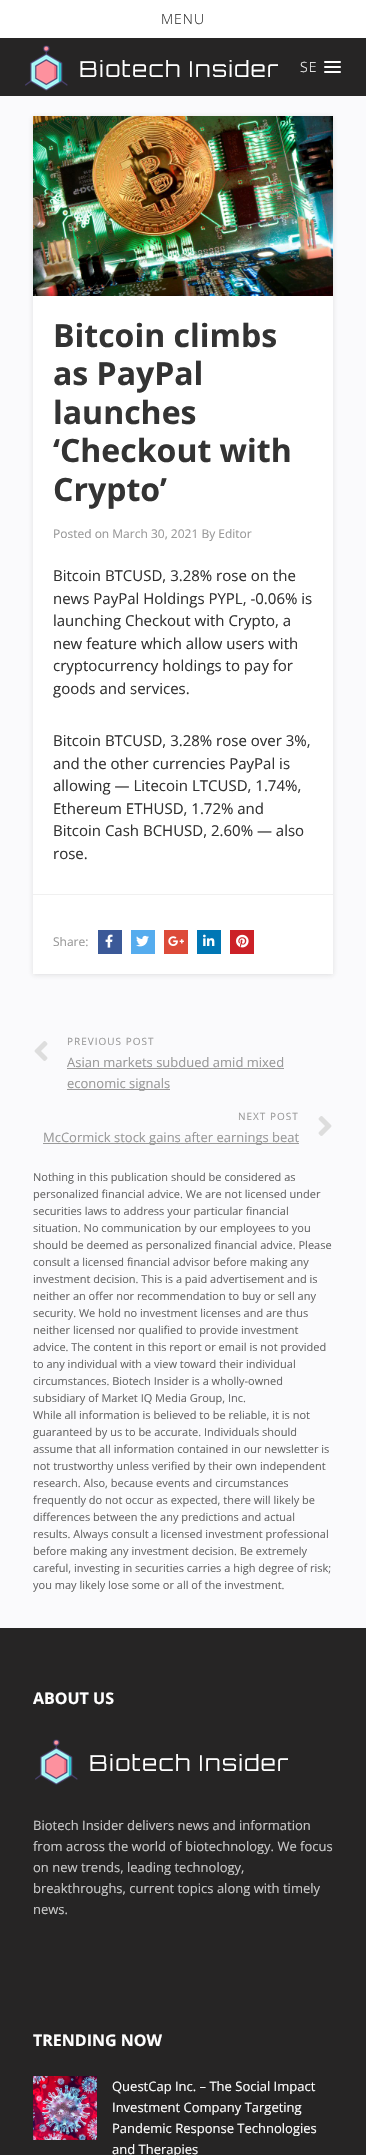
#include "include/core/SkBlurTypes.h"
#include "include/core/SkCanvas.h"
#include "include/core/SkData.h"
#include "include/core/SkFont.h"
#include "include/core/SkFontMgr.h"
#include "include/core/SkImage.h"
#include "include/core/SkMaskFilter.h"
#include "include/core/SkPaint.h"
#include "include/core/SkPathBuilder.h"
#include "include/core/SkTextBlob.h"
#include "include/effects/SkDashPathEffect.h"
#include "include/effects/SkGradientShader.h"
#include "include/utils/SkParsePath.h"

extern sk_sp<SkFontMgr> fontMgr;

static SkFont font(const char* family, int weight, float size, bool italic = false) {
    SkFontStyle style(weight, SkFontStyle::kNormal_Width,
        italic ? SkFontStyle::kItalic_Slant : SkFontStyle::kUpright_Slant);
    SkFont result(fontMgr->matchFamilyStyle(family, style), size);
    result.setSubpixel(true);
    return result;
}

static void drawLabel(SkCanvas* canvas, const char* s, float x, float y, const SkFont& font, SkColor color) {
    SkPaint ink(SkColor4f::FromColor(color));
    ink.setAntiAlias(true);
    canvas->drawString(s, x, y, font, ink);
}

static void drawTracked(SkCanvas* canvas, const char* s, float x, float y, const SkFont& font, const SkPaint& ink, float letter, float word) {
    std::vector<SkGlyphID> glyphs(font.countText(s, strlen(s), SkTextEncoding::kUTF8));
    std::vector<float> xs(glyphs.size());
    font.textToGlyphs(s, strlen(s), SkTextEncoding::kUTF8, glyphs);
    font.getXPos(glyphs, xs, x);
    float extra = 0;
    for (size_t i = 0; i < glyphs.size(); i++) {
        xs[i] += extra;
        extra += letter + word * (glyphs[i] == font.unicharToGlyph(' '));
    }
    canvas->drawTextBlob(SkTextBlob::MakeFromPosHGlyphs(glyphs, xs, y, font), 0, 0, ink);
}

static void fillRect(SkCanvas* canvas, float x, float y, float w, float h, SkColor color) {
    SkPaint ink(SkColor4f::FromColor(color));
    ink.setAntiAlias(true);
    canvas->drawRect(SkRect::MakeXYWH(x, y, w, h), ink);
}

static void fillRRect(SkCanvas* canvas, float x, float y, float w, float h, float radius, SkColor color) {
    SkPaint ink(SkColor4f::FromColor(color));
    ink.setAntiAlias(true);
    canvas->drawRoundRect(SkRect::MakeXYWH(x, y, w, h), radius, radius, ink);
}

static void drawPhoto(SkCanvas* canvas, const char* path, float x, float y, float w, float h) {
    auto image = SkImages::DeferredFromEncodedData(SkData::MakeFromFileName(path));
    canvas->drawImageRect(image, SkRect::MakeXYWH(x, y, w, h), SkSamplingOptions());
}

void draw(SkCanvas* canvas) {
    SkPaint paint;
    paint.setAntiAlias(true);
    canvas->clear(0xFFFAFAFC);
    fillRect(canvas, 0, 0, 366, 38, 0xFFFFFFFF);
    SkFont font1 = font("Open Sans", 300, 14);
    paint.setColor(0xFF333333);
    drawTracked(canvas, "MENU", 161, 24, font1, paint, 1, 0);
    fillRect(canvas, 0, 38, 366, 58, 0xFF262525);
    drawPhoto(canvas, "assets/img1.png", 25, 45, 273, 46);
    paint.setColor(0xFFFFFFFF);
    drawTracked(canvas, "SE", 300, 72, font1, paint, 1, 0);
    fillRRect(canvas, 324, 61, 17, 2, 1, 0xFFFFFFFF);
    fillRRect(canvas, 324, 66, 17, 2, 1, 0xFFFFFFFF);
    fillRRect(canvas, 324, 71, 17, 2, 1, 0xFFFFFFFF);
    paint.setColor(0x75BEBEBE);
    paint.setMaskFilter(SkMaskFilter::MakeBlur(kNormal_SkBlurStyle, 2.5f));
    canvas->drawRect(SkRect::MakeXYWH(33, 117, 300, 858), paint);
    paint.setMaskFilter(nullptr);
    fillRect(canvas, 33, 296, 300, 678, 0xFFFFFFFF);
    drawPhoto(canvas, "assets/img2.png", 33, 116, 300, 180);
    SkFont font2 = font("Open Sans", 700, 32);
    drawLabel(canvas, "Bitcoin climbs", 53, 347, font2, 0xFF333333);
    drawLabel(canvas, "as PayPal", 53, 385, font2, 0xFF333333);
    drawLabel(canvas, "launches", 53, 424, font2, 0xFF333333);
    drawLabel(canvas, "‘Checkout with", 53, 462, font2, 0xFF333333);
    drawLabel(canvas, "Crypto’", 53, 501, font2, 0xFF333333);
    SkFont font3 = font("Open Sans", 400, 12);
    drawLabel(canvas, "Posted on March 30, 2021 By Editor", 53, 538, font3, 0xFF999999);
    SkFont font4 = font("Open Sans", 400, 15);
    drawLabel(canvas, "Bitcoin BTCUSD, 3.28% rose on the", 53, 581, font4, 0xFF333333);
    drawLabel(canvas, "news PayPal Holdings PYPL, -0.06% is", 53, 604, font4, 0xFF333333);
    drawLabel(canvas, "launching Checkout with Crypto, a", 53, 626, font4, 0xFF333333);
    drawLabel(canvas, "new feature which allow users with", 53, 649, font4, 0xFF333333);
    drawLabel(canvas, "cryptocurrency holdings to pay for", 53, 671, font4, 0xFF333333);
    drawLabel(canvas, "goods and services.", 53, 694, font4, 0xFF333333);
    drawLabel(canvas, "Bitcoin BTCUSD, 3.28% rose over 3%,", 53, 746, font4, 0xFF333333);
    drawLabel(canvas, "and the other currencies PayPal is", 53, 769, font4, 0xFF333333);
    drawLabel(canvas, "allowing — Litecoin LTCUSD, 1.74%,", 53, 791, font4, 0xFF333333);
    drawLabel(canvas, "Ethereum ETHUSD, 1.72% and", 53, 814, font4, 0xFF333333);
    drawLabel(canvas, "Bitcoin Cash BCHUSD, 2.60% — also", 53, 836, font4, 0xFF333333);
    drawLabel(canvas, "rose.", 53, 859, font4, 0xFF333333);
    fillRect(canvas, 33, 894, 300, 1, 0xFFF0F0F0);
    drawLabel(canvas, "Share:", 53, 946, font3, 0xFF999999);
    fillRect(canvas, 98, 930, 24, 24, 0xFF3B5998);
    drawPhoto(canvas, "assets/img3.png", 105, 934, 8, 14);
    fillRect(canvas, 131, 930, 24, 24, 0xFF55ACEE);
    drawPhoto(canvas, "assets/img4.png", 136, 935, 13, 12);
    fillRect(canvas, 164, 930, 24, 24, 0xFFDD4B39);
    drawPhoto(canvas, "assets/img5.png", 168, 936, 16, 10);
    fillRect(canvas, 197, 930, 24, 24, 0xFF0077B5);
    drawPhoto(canvas, "assets/img6.png", 203, 934, 12, 12);
    fillRect(canvas, 230, 930, 24, 24, 0xFFCC2127);
    drawPhoto(canvas, "assets/img7.png", 236, 934, 13, 14);
    drawPhoto(canvas, "assets/img8.png", 34, 1041, 14, 20);
    SkFont font5 = font("Open Sans", 400, 10);
    paint.setColor(0xFF999999);
    drawTracked(canvas, "PREVIOUS POST", 67, 1045, font5, paint, 1, 0);
    SkFont font6 = font("Open Sans", 400, 13);
    drawLabel(canvas, "Asian markets subdued amid mixed", 67, 1067, font6, 0xFF999999);
    fillRect(canvas, 67, 1068, 217, 1, 0xFF999999);
    fillRect(canvas, 67, 1089, 103, 1, 0xFF999999);
    drawLabel(canvas, "economic signals", 67, 1088, font6, 0xFF999999);
    drawTracked(canvas, "NEXT POST", 238, 1120, font5, paint, 1, 0);
    fillRect(canvas, 43, 1143, 256, 1, 0xFF999999);
    drawLabel(canvas, "McCormick stock gains after earnings beat", 43, 1142, font6, 0xFF999999);
    drawPhoto(canvas, "assets/img9.png", 318, 1116, 14, 20);
    SkFont font7 = font("Open Sans", 400, 11);
    drawLabel(canvas, "Nothing in this publication should be considered as", 33, 1181, font7, 0xFF666666);
    drawLabel(canvas, "personalized financial advice. We are not licensed under", 33, 1198, font7, 0xFF666666);
    drawLabel(canvas, "securities laws to address your particular financial", 33, 1215, font7, 0xFF666666);
    drawLabel(canvas, "situation. No communication by our employees to you", 33, 1232, font7, 0xFF666666);
    drawLabel(canvas, "should be deemed as personalized financial advice. Please", 33, 1249, font7, 0xFF666666);
    drawLabel(canvas, "consult a licensed financial advisor before making any", 33, 1266, font7, 0xFF666666);
    drawLabel(canvas, "investment decision. This is a paid advertisement and is", 33, 1283, font7, 0xFF666666);
    drawLabel(canvas, "neither an offer nor recommendation to buy or sell any", 33, 1300, font7, 0xFF666666);
    drawLabel(canvas, "security. We hold no investment licenses and are thus", 33, 1317, font7, 0xFF666666);
    drawLabel(canvas, "neither licensed nor qualified to provide investment", 33, 1334, font7, 0xFF666666);
    drawLabel(canvas, "advice. The content in this report or email is not provided", 33, 1351, font7, 0xFF666666);
    drawLabel(canvas, "to any individual with a view toward their individual", 33, 1368, font7, 0xFF666666);
    drawLabel(canvas, "circumstances. Biotech Insider is a wholly-owned", 33, 1385, font7, 0xFF666666);
    drawLabel(canvas, "subsidiary of Market IQ Media Group, Inc.", 33, 1402, font7, 0xFF666666);
    drawLabel(canvas, "While all information is believed to be reliable, it is not", 33, 1419, font7, 0xFF666666);
    drawLabel(canvas, "guaranteed by us to be accurate. Individuals should", 33, 1436, font7, 0xFF666666);
    drawLabel(canvas, "assume that all information contained in our newsletter is", 33, 1453, font7, 0xFF666666);
    drawLabel(canvas, "not trustworthy unless verified by their own independent", 33, 1470, font7, 0xFF666666);
    drawLabel(canvas, "research. Also, because events and circumstances", 33, 1487, font7, 0xFF666666);
    drawLabel(canvas, "frequently do not occur as expected, there will likely be", 33, 1504, font7, 0xFF666666);
    drawLabel(canvas, "differences between the any predictions and actual", 33, 1521, font7, 0xFF666666);
    drawLabel(canvas, "results. Always consult a licensed investment professional", 33, 1538, font7, 0xFF666666);
    drawLabel(canvas, "before making any investment decision. Be extremely", 33, 1555, font7, 0xFF666666);
    drawLabel(canvas, "careful, investing in securities carries a high degree of risk;", 33, 1572, font7, 0xFF666666);
    drawLabel(canvas, "you may likely lose some or all of the investment.", 33, 1589, font7, 0xFF666666);
    fillRect(canvas, 0, 1628, 366, 527, 0xFF262525);
    SkFont font8 = font("Open Sans", 700, 16);
    drawLabel(canvas, "ABOUT US", 33, 1704, font8, 0xFFFFFFFF);
    drawPhoto(canvas, "assets/img10.png", 35, 1739, 253, 46);
    drawLabel(canvas, "Biotech Insider delivers news and information", 33, 1830, font6, 0xFFC9C9C9);
    drawLabel(canvas, "from across the world of biotechnology. We focus", 33, 1851, font6, 0xFFC9C9C9);
    drawLabel(canvas, "on new trends, leading technology,", 33, 1872, font6, 0xFFC9C9C9);
    drawLabel(canvas, "breakthroughs, current topics along with timely", 33, 1893, font6, 0xFFC9C9C9);
    drawLabel(canvas, "news.", 33, 1914, font6, 0xFFC9C9C9);
    drawLabel(canvas, "TRENDING NOW", 33, 2046, font8, 0xFFFFFFFF);
    drawPhoto(canvas, "assets/img11.png", 33, 2076, 64, 64);
    drawLabel(canvas, "QuestCap Inc. – The Social Impact", 112, 2091, font6, 0xFFFFFFFF);
    drawLabel(canvas, "Investment Company Targeting", 112, 2112, font6, 0xFFFFFFFF);
    drawLabel(canvas, "Pandemic Response Technologies", 112, 2133, font6, 0xFFFFFFFF);
    drawLabel(canvas, "and Therapies", 112, 2154, font6, 0xFFFFFFFF);
}
